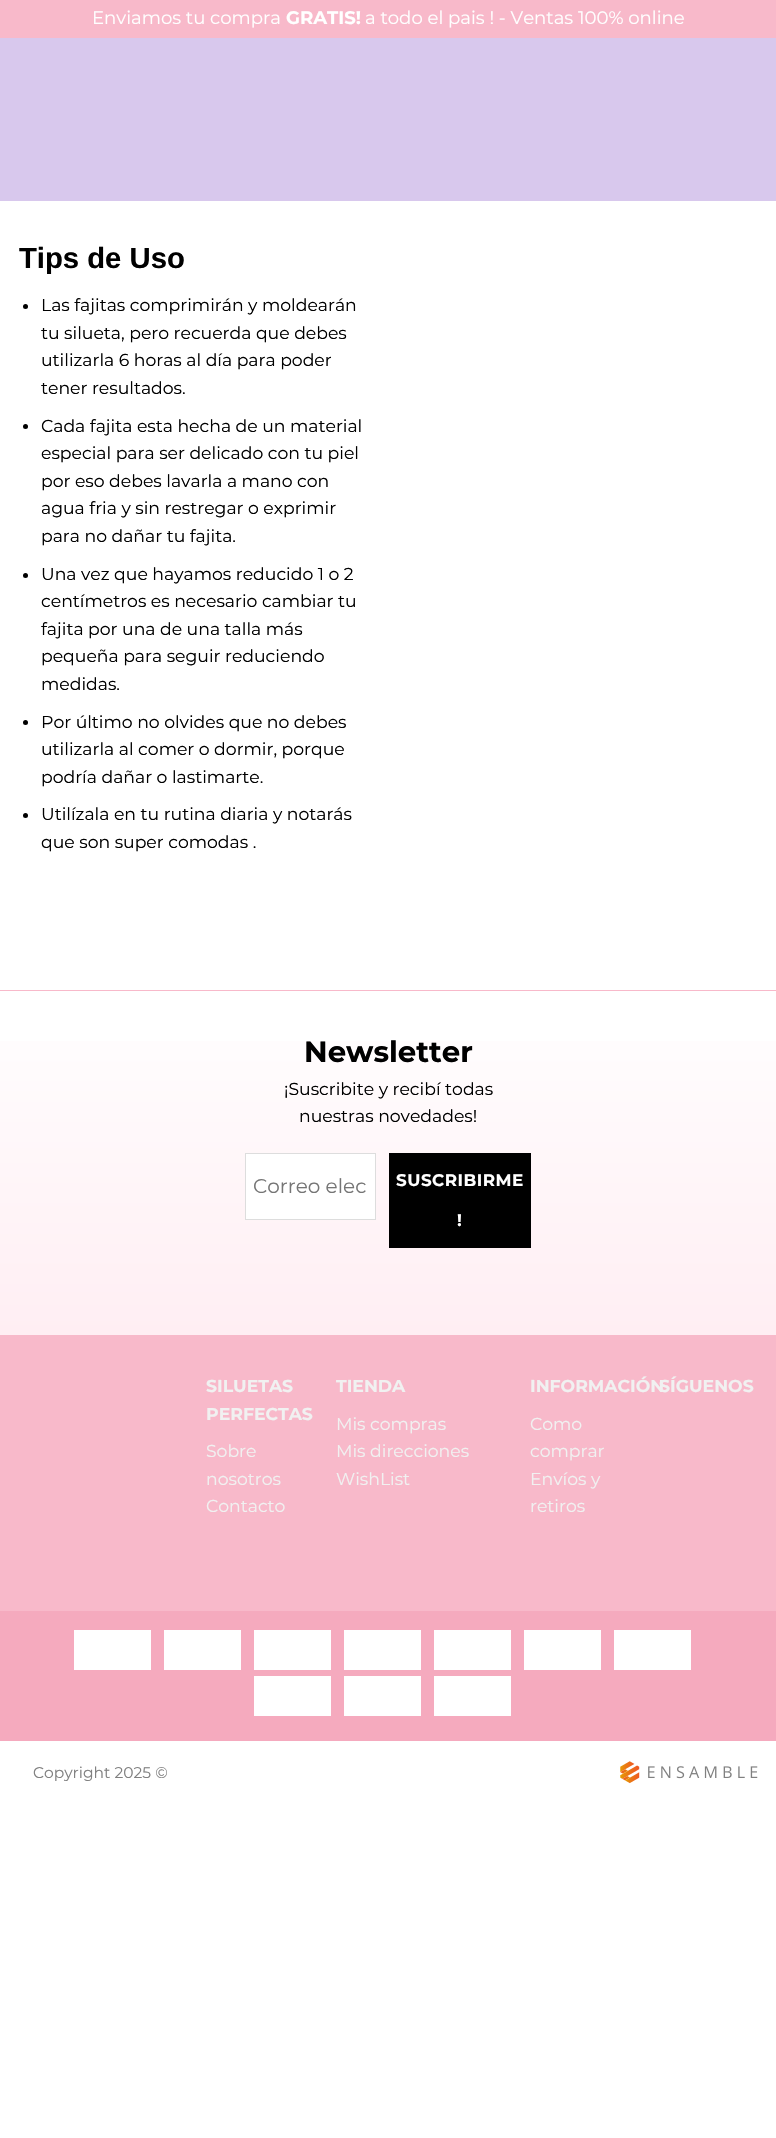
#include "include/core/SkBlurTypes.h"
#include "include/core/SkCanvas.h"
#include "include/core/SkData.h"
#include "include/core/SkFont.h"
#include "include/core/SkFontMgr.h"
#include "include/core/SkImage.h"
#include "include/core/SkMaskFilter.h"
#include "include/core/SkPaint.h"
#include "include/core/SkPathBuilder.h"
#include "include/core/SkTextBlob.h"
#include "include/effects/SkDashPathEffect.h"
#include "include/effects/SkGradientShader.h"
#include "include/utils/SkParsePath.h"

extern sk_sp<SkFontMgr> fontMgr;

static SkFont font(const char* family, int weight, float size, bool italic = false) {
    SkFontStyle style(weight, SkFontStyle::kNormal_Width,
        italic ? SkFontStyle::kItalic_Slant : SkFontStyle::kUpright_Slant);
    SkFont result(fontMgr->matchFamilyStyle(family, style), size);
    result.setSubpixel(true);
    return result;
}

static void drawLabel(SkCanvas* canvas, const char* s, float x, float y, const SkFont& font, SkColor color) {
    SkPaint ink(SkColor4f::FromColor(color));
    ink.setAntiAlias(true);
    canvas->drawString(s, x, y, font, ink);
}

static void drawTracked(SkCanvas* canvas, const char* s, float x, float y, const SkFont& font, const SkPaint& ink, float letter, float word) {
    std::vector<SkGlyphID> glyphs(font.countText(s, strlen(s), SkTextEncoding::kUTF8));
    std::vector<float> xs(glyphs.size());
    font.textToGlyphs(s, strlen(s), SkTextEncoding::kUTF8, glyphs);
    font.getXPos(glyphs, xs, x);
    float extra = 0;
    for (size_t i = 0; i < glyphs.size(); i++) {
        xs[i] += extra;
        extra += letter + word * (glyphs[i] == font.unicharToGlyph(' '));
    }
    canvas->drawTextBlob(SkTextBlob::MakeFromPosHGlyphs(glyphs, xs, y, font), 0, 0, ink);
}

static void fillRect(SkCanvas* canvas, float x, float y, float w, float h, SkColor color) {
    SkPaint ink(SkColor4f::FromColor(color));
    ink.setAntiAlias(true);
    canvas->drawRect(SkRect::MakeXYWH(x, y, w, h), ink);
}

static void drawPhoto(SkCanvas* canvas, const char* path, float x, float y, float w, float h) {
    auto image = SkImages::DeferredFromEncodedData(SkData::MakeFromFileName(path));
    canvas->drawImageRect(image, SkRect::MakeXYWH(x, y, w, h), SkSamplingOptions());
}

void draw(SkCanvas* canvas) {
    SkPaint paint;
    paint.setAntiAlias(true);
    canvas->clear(0xFFFFFFFF);
    fillRect(canvas, 0, 0, 776, 38, 0xFFF8B9CA);
    SkFont font1 = font("Montserrat", 400, 18.1f);
    drawLabel(canvas, "Enviamos tu compra", 92, 24, font1, 0xFFFFFFFF);
    SkFont font2 = font("Montserrat", 700, 18.1f);
    drawLabel(canvas, "GRATIS!", 286, 24, font2, 0xFFFFFFFF);
    drawLabel(canvas, "a todo el pais ! - Ventas 100% online", 365, 24, font1, 0xFFFFFFFF);
    fillRect(canvas, 0, 38, 776, 163, 0xFFD8C8ED);
    SkFont font3 = font("Liberation Sans", 700, 29.25f);
    drawLabel(canvas, "Tips de Uso", 19, 268, font3, 0xFF000000);
    paint.setColor(0xFF000000);
    canvas->drawCircle(25.5f, 306.5f, 2.5f, paint);
    SkFont font4 = font("Montserrat", 400, 17.25f);
    drawLabel(canvas, "Las fajitas comprimirán y moldearán", 41, 311, font4, 0xFF000000);
    drawLabel(canvas, "tu silueta, pero recuerda que debes", 41, 339, font4, 0xFF000000);
    drawLabel(canvas, "utilizarla 6 horas al día para poder", 41, 366, font4, 0xFF000000);
    drawLabel(canvas, "tener resultados.", 41, 394, font4, 0xFF000000);
    canvas->drawCircle(25.5f, 426.5f, 2.5f, paint);
    drawLabel(canvas, "Cada fajita esta hecha de un material", 41, 432, font4, 0xFF000000);
    drawLabel(canvas, "especial para ser delicado con tu piel", 41, 459, font4, 0xFF000000);
    drawLabel(canvas, "por eso debes lavarla a mano con", 41, 487, font4, 0xFF000000);
    drawLabel(canvas, "agua fria y sin restregar o exprimir", 41, 514, font4, 0xFF000000);
    drawLabel(canvas, "para no dañar tu fajita.", 41, 542, font4, 0xFF000000);
    canvas->drawCircle(25.5f, 575.5f, 2.5f, paint);
    drawLabel(canvas, "Una vez que hayamos reducido 1 o 2", 41, 580, font4, 0xFF000000);
    drawLabel(canvas, "centímetros es necesario cambiar tu", 41, 607, font4, 0xFF000000);
    drawLabel(canvas, "fajita por una de una talla más", 41, 635, font4, 0xFF000000);
    drawLabel(canvas, "pequeña para seguir reduciendo", 41, 662, font4, 0xFF000000);
    drawLabel(canvas, "medidas.", 41, 690, font4, 0xFF000000);
    canvas->drawCircle(25.5f, 722.5f, 2.5f, paint);
    drawLabel(canvas, "Por último no olvides que no debes", 41, 728, font4, 0xFF000000);
    drawLabel(canvas, "utilizarla al comer o dormir, porque", 41, 755, font4, 0xFF000000);
    drawLabel(canvas, "podría dañar o lastimarte.", 41, 783, font4, 0xFF000000);
    canvas->drawCircle(25.5f, 815.5f, 2.5f, paint);
    drawLabel(canvas, "Utilízala en tu rutina diaria y notarás", 41, 820, font4, 0xFF000000);
    drawLabel(canvas, "que son super comodas .", 41, 848, font4, 0xFF000000);
    {
        const SkColor colors[] = {0xFFFFFFFF, 0xFFFFEEF3};
        const float stops[] = {0, 1};
        const SkPoint ends[] = {{388, 990}, {388, 1335}};
        paint.setShader(SkGradientShader::MakeLinear(ends, colors, stops, 2, SkTileMode::kClamp));
        paint.setAlpha(255);
    }
    canvas->drawRect(SkRect::MakeXYWH(0, 1041, 776, 294), paint);
    fillRect(canvas, 0, 990, 776, 1, 0xFFF8B9CA);
    SkFont font5 = font("Montserrat", 700, 29.25f);
    drawLabel(canvas, "Newsletter", 304, 1062, font5, 0xFF000000);
    drawLabel(canvas, "¡Suscribite y recibí todas", 284, 1095, font4, 0xFF000000);
    drawLabel(canvas, "nuestras novedades!", 299, 1122, font4, 0xFF000000);
    paint.setShader(nullptr);
    paint.setColor(0xFFFFFFFF);
    canvas->drawRect(SkRect::MakeXYWH(245.5f, 1153.5f, 130, 66), paint);
    paint.setStroke(true);
    paint.setStrokeWidth(1);
    paint.setColor(0xFFDDDDDD);
    canvas->drawRect(SkRect::MakeXYWH(245.5f, 1153.5f, 130, 66), paint);
    SkFont font6 = font("Montserrat", 400, 20);
    drawLabel(canvas, "Correo elec", 253, 1193, font6, 0xFF757575);
    fillRect(canvas, 389, 1153, 142, 95, 0xFF000000);
    SkFont font7 = font("Montserrat", 700, 16.75f);
    paint.setStroke(false);
    paint.setColor(0xFFFFFFFF);
    drawTracked(canvas, "SUSCRIBIRME", 396, 1186, font7, paint, 0.5f, 0);
    drawTracked(canvas, "!", 457, 1226, font7, paint, 0.5f, 0);
    fillRect(canvas, 0, 1335, 776, 276, 0xFFF8B9CA);
    SkFont font8 = font("Montserrat", 700, 17.25f);
    drawLabel(canvas, "SILUETAS", 206, 1392, font8, 0xFFF1F1F1);
    drawLabel(canvas, "PERFECTAS", 206, 1420, font8, 0xFFF1F1F1);
    drawLabel(canvas, "Sobre", 206, 1457, font4, 0xFFF1F1F1);
    drawLabel(canvas, "nosotros", 206, 1485, font4, 0xFFF1F1F1);
    drawLabel(canvas, "Contacto", 206, 1512, font4, 0xFFF1F1F1);
    drawLabel(canvas, "TIENDA", 336, 1392, font8, 0xFFF1F1F1);
    drawLabel(canvas, "Mis compras", 336, 1430, font4, 0xFFF1F1F1);
    drawLabel(canvas, "Mis direcciones", 336, 1457, font4, 0xFFF1F1F1);
    drawLabel(canvas, "WishList", 336, 1485, font4, 0xFFF1F1F1);
    drawLabel(canvas, "INFORMACIÓN", 530, 1392, font8, 0xFFF1F1F1);
    drawLabel(canvas, "Como", 530, 1430, font4, 0xFFF1F1F1);
    drawLabel(canvas, "comprar", 530, 1457, font4, 0xFFF1F1F1);
    drawLabel(canvas, "Envíos y", 530, 1485, font4, 0xFFF1F1F1);
    drawLabel(canvas, "retiros", 530, 1512, font4, 0xFFF1F1F1);
    drawLabel(canvas, "SÍGUENOS", 659, 1392, font8, 0xFFF1F1F1);
    fillRect(canvas, 0, 1611, 776, 130, 0xFFF5AABE);
    fillRect(canvas, 74, 1630, 77, 40, 0xFFFFFFFF);
    fillRect(canvas, 164, 1630, 77, 40, 0xFFFFFFFF);
    fillRect(canvas, 254, 1630, 77, 40, 0xFFFFFFFF);
    fillRect(canvas, 344, 1630, 77, 40, 0xFFFFFFFF);
    fillRect(canvas, 434, 1630, 77, 40, 0xFFFFFFFF);
    fillRect(canvas, 524, 1630, 77, 40, 0xFFFFFFFF);
    fillRect(canvas, 614, 1630, 77, 40, 0xFFFFFFFF);
    fillRect(canvas, 254, 1676, 77, 40, 0xFFFFFFFF);
    fillRect(canvas, 344, 1676, 77, 40, 0xFFFFFFFF);
    fillRect(canvas, 434, 1676, 77, 40, 0xFFFFFFFF);
    SkFont font9 = font("Montserrat", 400, 15.5f);
    drawLabel(canvas, "Copyright 2025 ©", 33, 1778, font9, 0xFF808080);
    drawPhoto(canvas, "assets/img1.png", 620, 1761, 138, 23);
}
